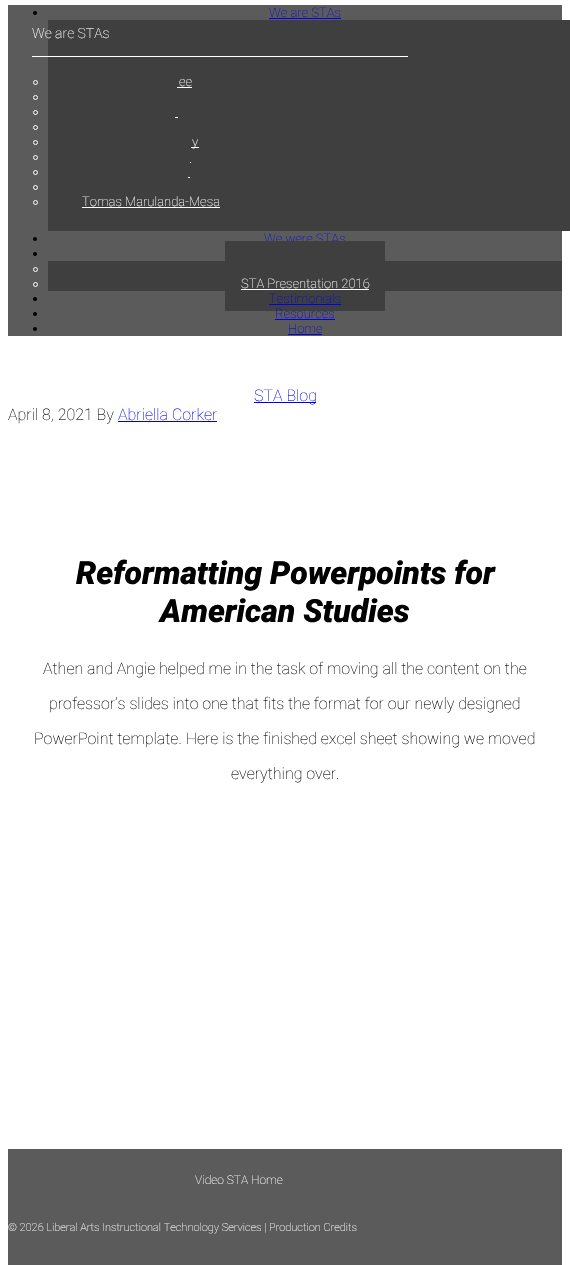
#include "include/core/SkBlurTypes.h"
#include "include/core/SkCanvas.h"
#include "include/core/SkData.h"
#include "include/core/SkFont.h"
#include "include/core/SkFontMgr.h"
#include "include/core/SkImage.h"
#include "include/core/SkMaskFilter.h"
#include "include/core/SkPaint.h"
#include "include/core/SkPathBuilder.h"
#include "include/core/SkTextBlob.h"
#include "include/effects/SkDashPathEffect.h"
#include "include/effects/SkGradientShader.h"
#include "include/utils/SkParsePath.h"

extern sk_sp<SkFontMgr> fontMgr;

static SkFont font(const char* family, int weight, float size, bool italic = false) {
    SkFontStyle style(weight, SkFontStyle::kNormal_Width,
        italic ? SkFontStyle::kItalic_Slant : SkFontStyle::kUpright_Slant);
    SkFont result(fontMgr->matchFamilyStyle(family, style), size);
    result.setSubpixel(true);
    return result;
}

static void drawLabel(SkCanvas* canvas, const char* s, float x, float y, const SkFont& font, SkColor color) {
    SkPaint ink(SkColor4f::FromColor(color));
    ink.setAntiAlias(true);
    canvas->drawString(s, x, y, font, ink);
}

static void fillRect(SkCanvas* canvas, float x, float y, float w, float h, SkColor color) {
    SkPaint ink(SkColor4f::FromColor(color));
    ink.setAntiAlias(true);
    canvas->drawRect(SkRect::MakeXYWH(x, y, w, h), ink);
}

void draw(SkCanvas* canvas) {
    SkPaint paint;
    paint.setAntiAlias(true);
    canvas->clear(0xFFFFFFFF);
    fillRect(canvas, 8, 5, 554, 331, 0xFF5B5B5B);
    paint.setColor(0xFF000000);
    canvas->drawCircle(35, 13, 2, paint);
    SkFont font1 = font("Roboto", 100, 13);
    drawLabel(canvas, "We are STAs", 269, 17, font1, 0xFF0000EE);
    fillRect(canvas, 269, 18, 72, 1, 0xFF0000EE);
    fillRect(canvas, 48, 20, 522, 211, 0xFF3F3F3F);
    fillRect(canvas, 32, 56, 376, 1, 0xFFFFFFFF);
    SkFont font2 = font("Roboto", 100, 14);
    drawLabel(canvas, "We are STAs", 32, 38, font2, 0xFFFFFFFF);
    paint.setStroke(true);
    paint.setStrokeWidth(1);
    paint.setColor(0xFFFFFFFF);
    canvas->drawCircle(35.5f, 82.5f, 2, paint);
    drawLabel(canvas, "ee", 179, 86, font1, 0xFFFFFFFF);
    fillRect(canvas, 177, 87, 15, 1, 0xFFFFFFFF);
    canvas->drawCircle(35.5f, 97.5f, 2, paint);
    canvas->drawCircle(35.5f, 112.5f, 2, paint);
    fillRect(canvas, 175, 117, 3, 1, 0xFFFFFFFF);
    canvas->drawCircle(35.5f, 127.5f, 2, paint);
    canvas->drawCircle(35.5f, 142.5f, 2, paint);
    fillRect(canvas, 191, 147, 8, 1, 0xFFFFFFFF);
    drawLabel(canvas, "y", 192, 146, font1, 0xFFFFFFFF);
    canvas->drawCircle(35.5f, 157.5f, 2, paint);
    fillRect(canvas, 190, 162, 1, 1, 0xFFFFFFFF);
    canvas->drawCircle(35.5f, 172.5f, 2, paint);
    fillRect(canvas, 188, 177, 2, 1, 0xFFFFFFFF);
    canvas->drawCircle(35.5f, 187.5f, 2, paint);
    canvas->drawCircle(35.5f, 202.5f, 2, paint);
    drawLabel(canvas, "Tomas Marulanda-Mesa", 82, 206, font1, 0xFFFFFFFF);
    fillRect(canvas, 82, 207, 138, 1, 0xFFFFFFFF);
    paint.setStroke(false);
    paint.setColor(0xFF000000);
    canvas->drawCircle(35, 239, 2, paint);
    drawLabel(canvas, "We were STAs", 264, 243, font1, 0xFF0000EE);
    canvas->drawCircle(35, 254, 2, paint);
    fillRect(canvas, 48, 261, 514, 30, 0xFF3F3F3F);
    paint.setStroke(true);
    paint.setColor(0xFFFFFFFF);
    canvas->drawCircle(35.5f, 269.5f, 2, paint);
    fillRect(canvas, 225, 241, 160, 70, 0xFF3F3F3F);
    canvas->drawCircle(35.5f, 284.5f, 2, paint);
    drawLabel(canvas, "STA Presentation 2016", 241, 288, font1, 0xFFFFFFFF);
    fillRect(canvas, 241, 289, 128, 1, 0xFFFFFFFF);
    paint.setStroke(false);
    paint.setColor(0xFF000000);
    canvas->drawCircle(35, 299, 2, paint);
    drawLabel(canvas, "Testimonials", 269, 303, font1, 0xFF0000EE);
    fillRect(canvas, 269, 304, 72, 1, 0xFF0000EE);
    canvas->drawCircle(35, 314, 2, paint);
    drawLabel(canvas, "Resources", 275, 318, font1, 0xFF0000EE);
    fillRect(canvas, 275, 319, 60, 1, 0xFF0000EE);
    canvas->drawCircle(35, 329, 2, paint);
    drawLabel(canvas, "Home", 288, 333, font1, 0xFF0000EE);
    fillRect(canvas, 288, 334, 34, 1, 0xFF0000EE);
    fillRect(canvas, 254, 402, 62, 1, 0xFF0000EE);
    SkFont font3 = font("Roboto", 100, 16);
    drawLabel(canvas, "STA Blog", 254, 401, font3, 0xFF0000EE);
    drawLabel(canvas, "April 8, 2021 By", 8, 420, font3, 0xFF000000);
    drawLabel(canvas, "Abriella Corker", 118, 420, font3, 0xFF0000EE);
    fillRect(canvas, 118, 421, 99, 1, 0xFF0000EE);
    SkFont font4 = font("Roboto", 900, 32, true);
    drawLabel(canvas, "Reformatting Powerpoints for", 76, 584, font4, 0xFF000000);
    drawLabel(canvas, "American Studies", 160, 622, font4, 0xFF000000);
    drawLabel(canvas, "Athen and Angie helped me in the task of moving all the content on the", 43, 674, font3, 0xFF000000);
    drawLabel(canvas, "professor’s slides into one that fits the format for our newly designed", 49, 709, font3, 0xFF000000);
    drawLabel(canvas, "PowerPoint template. Here is the finished excel sheet showing we moved", 34, 744, font3, 0xFF000000);
    drawLabel(canvas, "everything over.", 231, 779, font3, 0xFF000000);
    fillRect(canvas, 8, 1149, 554, 116, 0xFF5B5B5B);
    SkFont font5 = font("Roboto", 100, 12);
    drawLabel(canvas, "Video STA Home", 195, 1184, font5, 0xFFFFFFFF);
    SkFont font6 = font("Roboto", 100, 11);
    drawLabel(canvas, "© 2026 Liberal Arts Instructional Technology Services | Production Credits", 8, 1231, font6, 0xFFFFFFFF);
}
